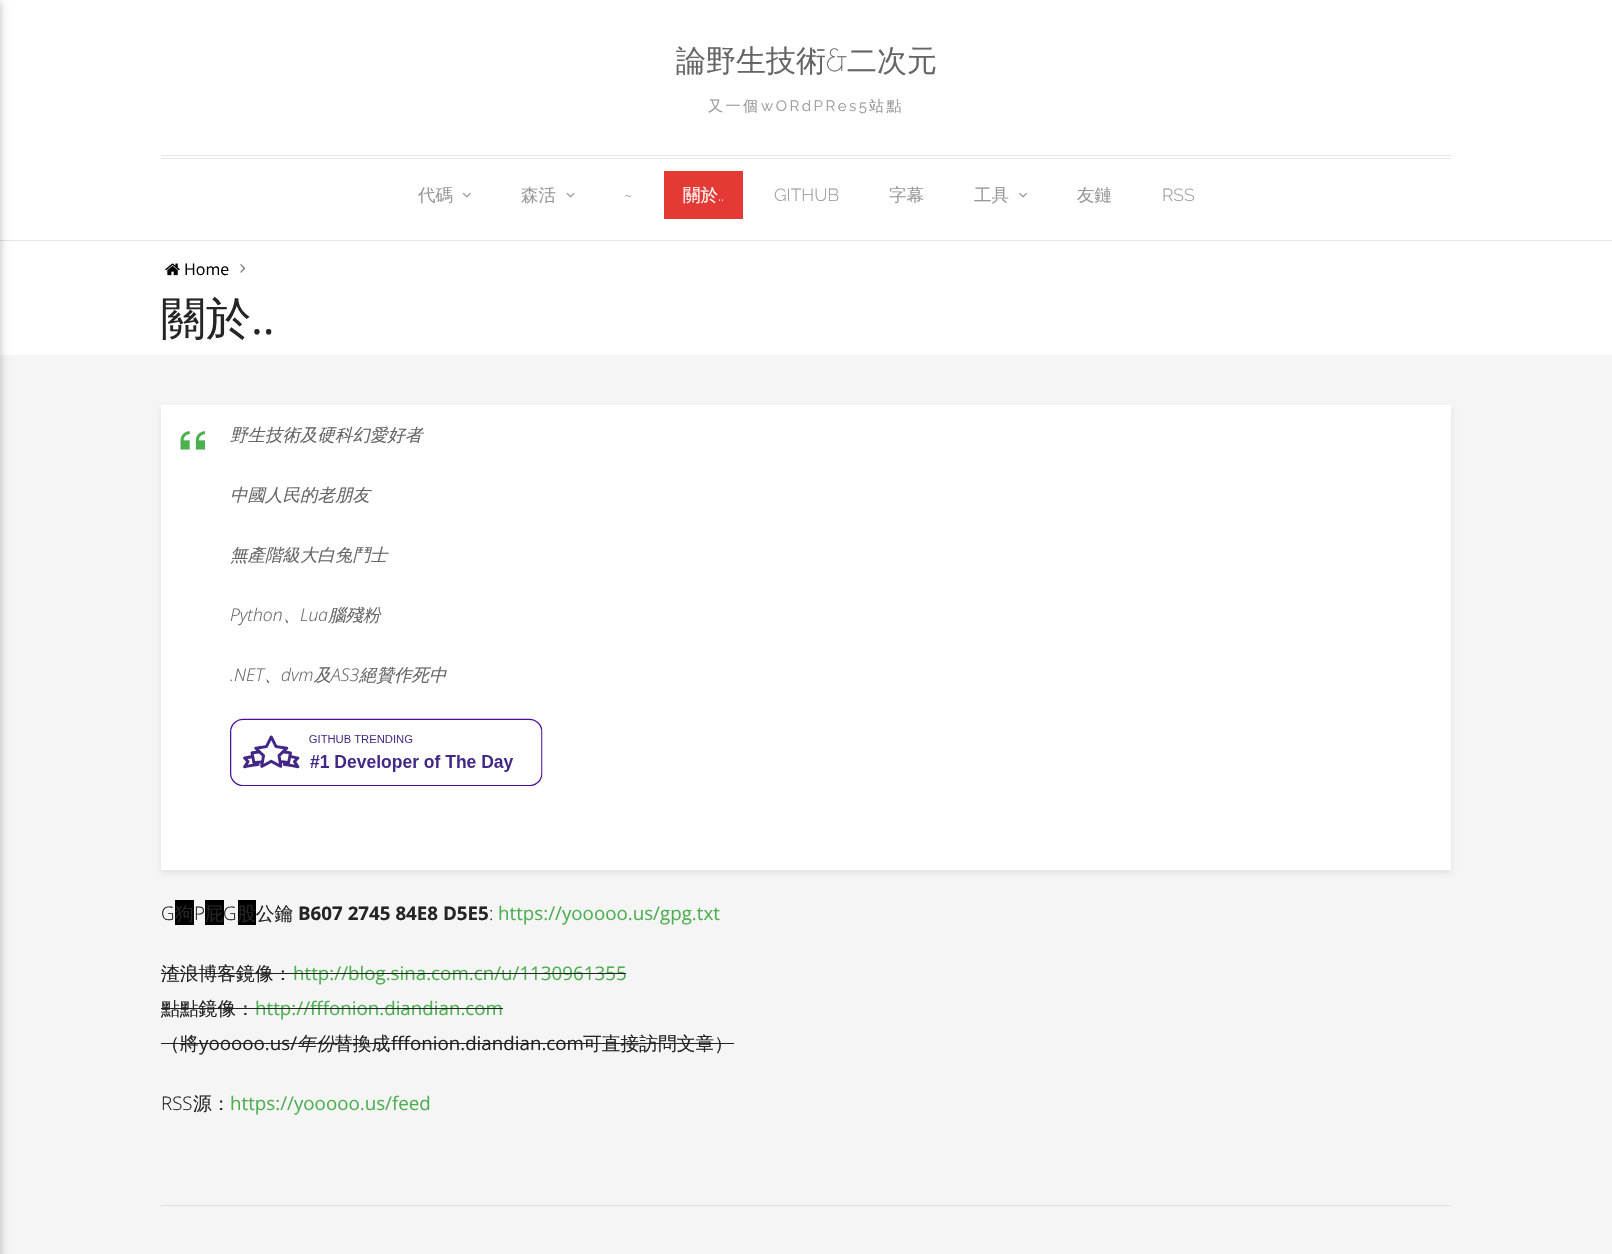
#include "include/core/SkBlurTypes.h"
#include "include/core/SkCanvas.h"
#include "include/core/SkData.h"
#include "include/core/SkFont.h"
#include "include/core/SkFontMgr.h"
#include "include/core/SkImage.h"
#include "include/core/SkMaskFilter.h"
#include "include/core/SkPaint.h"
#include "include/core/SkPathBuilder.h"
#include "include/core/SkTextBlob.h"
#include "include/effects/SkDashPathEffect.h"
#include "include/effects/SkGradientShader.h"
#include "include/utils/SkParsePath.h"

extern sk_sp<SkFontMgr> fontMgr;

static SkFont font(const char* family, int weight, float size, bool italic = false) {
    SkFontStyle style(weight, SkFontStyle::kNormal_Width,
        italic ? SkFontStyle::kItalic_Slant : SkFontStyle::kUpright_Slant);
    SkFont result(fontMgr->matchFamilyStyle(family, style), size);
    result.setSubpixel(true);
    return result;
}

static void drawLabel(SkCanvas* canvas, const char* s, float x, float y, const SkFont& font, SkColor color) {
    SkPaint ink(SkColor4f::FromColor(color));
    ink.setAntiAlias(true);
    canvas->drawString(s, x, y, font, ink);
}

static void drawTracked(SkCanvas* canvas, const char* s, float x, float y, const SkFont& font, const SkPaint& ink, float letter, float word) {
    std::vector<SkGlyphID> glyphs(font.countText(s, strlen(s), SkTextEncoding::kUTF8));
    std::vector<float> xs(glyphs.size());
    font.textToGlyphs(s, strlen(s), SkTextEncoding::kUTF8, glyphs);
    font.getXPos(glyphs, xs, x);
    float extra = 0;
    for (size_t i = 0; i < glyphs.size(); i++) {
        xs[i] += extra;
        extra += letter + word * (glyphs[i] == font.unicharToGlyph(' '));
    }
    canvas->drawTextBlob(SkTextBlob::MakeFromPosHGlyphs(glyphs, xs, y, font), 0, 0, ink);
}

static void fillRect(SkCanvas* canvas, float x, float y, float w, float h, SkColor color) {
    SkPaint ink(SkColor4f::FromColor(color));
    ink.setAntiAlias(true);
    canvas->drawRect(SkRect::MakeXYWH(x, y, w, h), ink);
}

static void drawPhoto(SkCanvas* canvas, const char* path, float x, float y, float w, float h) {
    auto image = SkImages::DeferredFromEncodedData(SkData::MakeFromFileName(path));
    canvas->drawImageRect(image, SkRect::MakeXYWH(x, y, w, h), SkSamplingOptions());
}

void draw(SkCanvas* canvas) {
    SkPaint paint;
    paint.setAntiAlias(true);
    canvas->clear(0xFFFFFFFF);
    fillRect(canvas, 0, 240, 1612, 1, 0xFFE6E6E6);
    fillRect(canvas, 0, 355, 1612, 899, 0xFFF5F5F5);
    paint.setColor(0x1F000000);
    paint.setMaskFilter(SkMaskFilter::MakeBlur(kNormal_SkBlurStyle, 6));
    canvas->drawRect(SkRect::MakeXYWH(-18, 3, 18, 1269), paint);
    paint.setMaskFilter(nullptr);
    paint.setColor(0x29000000);
    paint.setMaskFilter(SkMaskFilter::MakeBlur(kNormal_SkBlurStyle, 3));
    canvas->drawRect(SkRect::MakeXYWH(-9, 3, 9, 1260), paint);
    paint.setMaskFilter(nullptr);
    fillRect(canvas, 161, 155, 1290, 1, 0xFFE6E6E6);
    fillRect(canvas, 161, 158, 1290, 1, 0xFFE6E6E6);
    SkFont font1 = font("WenQuanYi Zen Hei", 500, 30);
    drawLabel(canvas, "論野生技術", 676, 71, font1, 0xFF666666);
    SkFont font2 = font("Poiret One", 400, 30);
    drawLabel(canvas, "&", 826, 71, font2, 0xFF666666);
    drawLabel(canvas, "二次元", 847, 71, font1, 0xFF666666);
    SkFont font3 = font("WenQuanYi Zen Hei", 500, 15);
    paint.setColor(0xFF999999);
    drawTracked(canvas, "又一個", 708, 111, font3, paint, 2.5f, 0);
    SkFont font4 = font("Raleway", 400, 15);
    drawTracked(canvas, "wORdPRes5", 761, 111, font4, paint, 2.5f, 0);
    drawTracked(canvas, "站點", 869, 111, font3, paint, 2.5f, 0);
    SkFont font5 = font("WenQuanYi Zen Hei", 500, 17.5f);
    drawLabel(canvas, "代碼", 418, 201, font5, 0xFF999999);
    drawPhoto(canvas, "assets/img1.png", 462, 192, 9, 6);
    drawLabel(canvas, "森活", 521, 201, font5, 0xFF999999);
    drawPhoto(canvas, "assets/img2.png", 566, 192, 9, 6);
    SkFont font6 = font("Raleway", 300, 17.5f);
    drawLabel(canvas, "~", 624, 201, font6, 0xFF999999);
    fillRect(canvas, 664, 171, 79, 48, 0xFFE53935);
    drawLabel(canvas, "關於", 683, 201, font5, 0xFFFFFFFF);
    drawLabel(canvas, "..", 718, 201, font6, 0xFFFFFFFF);
    drawLabel(canvas, "GITHUB", 774, 201, font6, 0xFF999999);
    drawLabel(canvas, "字幕", 889, 201, font5, 0xFF999999);
    drawLabel(canvas, "工具", 974, 201, font5, 0xFF999999);
    drawPhoto(canvas, "assets/img3.png", 1019, 192, 8, 6);
    drawLabel(canvas, "友鏈", 1077, 201, font5, 0xFF999999);
    drawLabel(canvas, "RSS", 1162, 201, font6, 0xFF999999);
    drawPhoto(canvas, "assets/img4.png", 165, 263, 15, 13);
    SkFont font7 = font("Open Sans", 400, 16);
    drawLabel(canvas, "Home", 184, 275, font7, 0xFF000000);
    drawPhoto(canvas, "assets/img5.png", 240, 264, 6, 9);
    SkFont font8 = font("WenQuanYi Zen Hei", 500, 45);
    drawLabel(canvas, "關於", 161, 334, font8, 0xFF252525);
    SkFont font9 = font("Open Sans", 400, 45);
    drawLabel(canvas, "..", 251, 334, font9, 0xFF252525);
    paint.setColor(0x14000000);
    paint.setMaskFilter(SkMaskFilter::MakeBlur(kNormal_SkBlurStyle, 3));
    canvas->drawRect(SkRect::MakeXYWH(161, 408, 1290, 465), paint);
    paint.setMaskFilter(nullptr);
    fillRect(canvas, 161, 405, 1290, 465, 0xFFFFFFFF);
    drawPhoto(canvas, "assets/img6.png", 180, 431, 26, 19);
    SkFont font10 = font("WenQuanYi Zen Hei", 500, 17.5f, true);
    drawLabel(canvas, "野生技術及硬科幻愛好者", 230, 441, font10, 0xFF666666);
    drawLabel(canvas, "中國人民的老朋友", 230, 501, font10, 0xFF666666);
    drawLabel(canvas, "無產階級大白兔鬥士", 230, 561, font10, 0xFF666666);
    SkFont font11 = font("Open Sans", 300, 17.5f, true);
    drawLabel(canvas, "Python", 230, 621, font11, 0xFF666666);
    drawLabel(canvas, "、", 283, 621, font10, 0xFF666666);
    drawLabel(canvas, "Lua", 300, 621, font11, 0xFF666666);
    drawLabel(canvas, "腦殘粉", 328, 621, font10, 0xFF666666);
    drawLabel(canvas, ".NET", 230, 681, font11, 0xFF666666);
    drawLabel(canvas, "、", 264, 681, font10, 0xFF666666);
    drawLabel(canvas, "dvm", 281, 681, font11, 0xFF666666);
    drawLabel(canvas, "及", 314, 681, font10, 0xFF666666);
    drawLabel(canvas, "AS3", 331, 681, font11, 0xFF666666);
    drawLabel(canvas, "絕贊作死中", 359, 681, font10, 0xFF666666);
    drawPhoto(canvas, "assets/img7.png", 230, 718, 313, 68);
    SkFont font12 = font("Open Sans", 300, 18.75f);
    drawLabel(canvas, "G", 161, 920, font12, 0xFF252525);
    fillRect(canvas, 175, 900, 19, 25, 0xFF000000);
    SkFont font13 = font("WenQuanYi Zen Hei", 500, 18.75f);
    drawLabel(canvas, "狗", 175, 920, font13, 0xFF252525);
    drawLabel(canvas, "P", 194, 920, font12, 0xFF252525);
    fillRect(canvas, 205, 900, 19, 25, 0xFF000000);
    drawLabel(canvas, "屁", 205, 920, font13, 0xFF252525);
    drawLabel(canvas, "G", 223, 920, font12, 0xFF252525);
    fillRect(canvas, 238, 900, 18, 25, 0xFF000000);
    drawLabel(canvas, "股公鑰", 237, 920, font13, 0xFF252525);
    SkFont font14 = font("Open Sans", 700, 18.75f);
    drawLabel(canvas, "B607 2745 84E8 D5E5", 298, 920, font14, 0xFF252525);
    drawLabel(canvas, ":", 489, 920, font12, 0xFF252525);
    SkFont font15 = font("Open Sans", 400, 18.75f);
    drawLabel(canvas, "https://yooooo.us/gpg.txt", 498, 920, font15, 0xFF4CAF50);
    drawLabel(canvas, "渣浪博客鏡像：", 161, 980, font13, 0xFF252525);
    fillRect(canvas, 161, 973, 132, 1, 0xFF212121);
    drawLabel(canvas, "http://blog.sina.com.cn/u/1130961355", 293, 980, font15, 0xFF4CAF50);
    fillRect(canvas, 293, 973, 333, 1, 0xFF212121);
    drawLabel(canvas, "點點鏡像：", 161, 1015, font13, 0xFF252525);
    fillRect(canvas, 161, 1008, 94, 1, 0xFF212121);
    drawLabel(canvas, "http://fffonion.diandian.com", 255, 1015, font15, 0xFF4CAF50);
    fillRect(canvas, 255, 1008, 248, 1, 0xFF212121);
    drawLabel(canvas, "（將", 161, 1050, font13, 0xFF252525);
    drawLabel(canvas, "yooooo.us/", 199, 1050, font15, 0xFF252525);
    fillRect(canvas, 161, 1043, 135, 1, 0xFF212121);
    SkFont font16 = font("WenQuanYi Zen Hei", 500, 18.75f, true);
    drawLabel(canvas, "年份", 297, 1050, font16, 0xFF252525);
    fillRect(canvas, 296, 1043, 38, 1, 0xFF212121);
    drawLabel(canvas, "替換成", 334, 1050, font13, 0xFF252525);
    drawLabel(canvas, "fffonion.diandian.com", 391, 1050, font15, 0xFF252525);
    drawLabel(canvas, "可直接訪問文章）", 583, 1050, font13, 0xFF252525);
    fillRect(canvas, 334, 1043, 400, 1, 0xFF212121);
    drawLabel(canvas, "RSS", 161, 1110, font12, 0xFF252525);
    drawLabel(canvas, "源：", 193, 1110, font13, 0xFF252525);
    drawLabel(canvas, "https://yooooo.us/feed", 230, 1110, font15, 0xFF4CAF50);
    fillRect(canvas, 161, 1205, 1290, 1, 0xFFDEDEDE);
}
